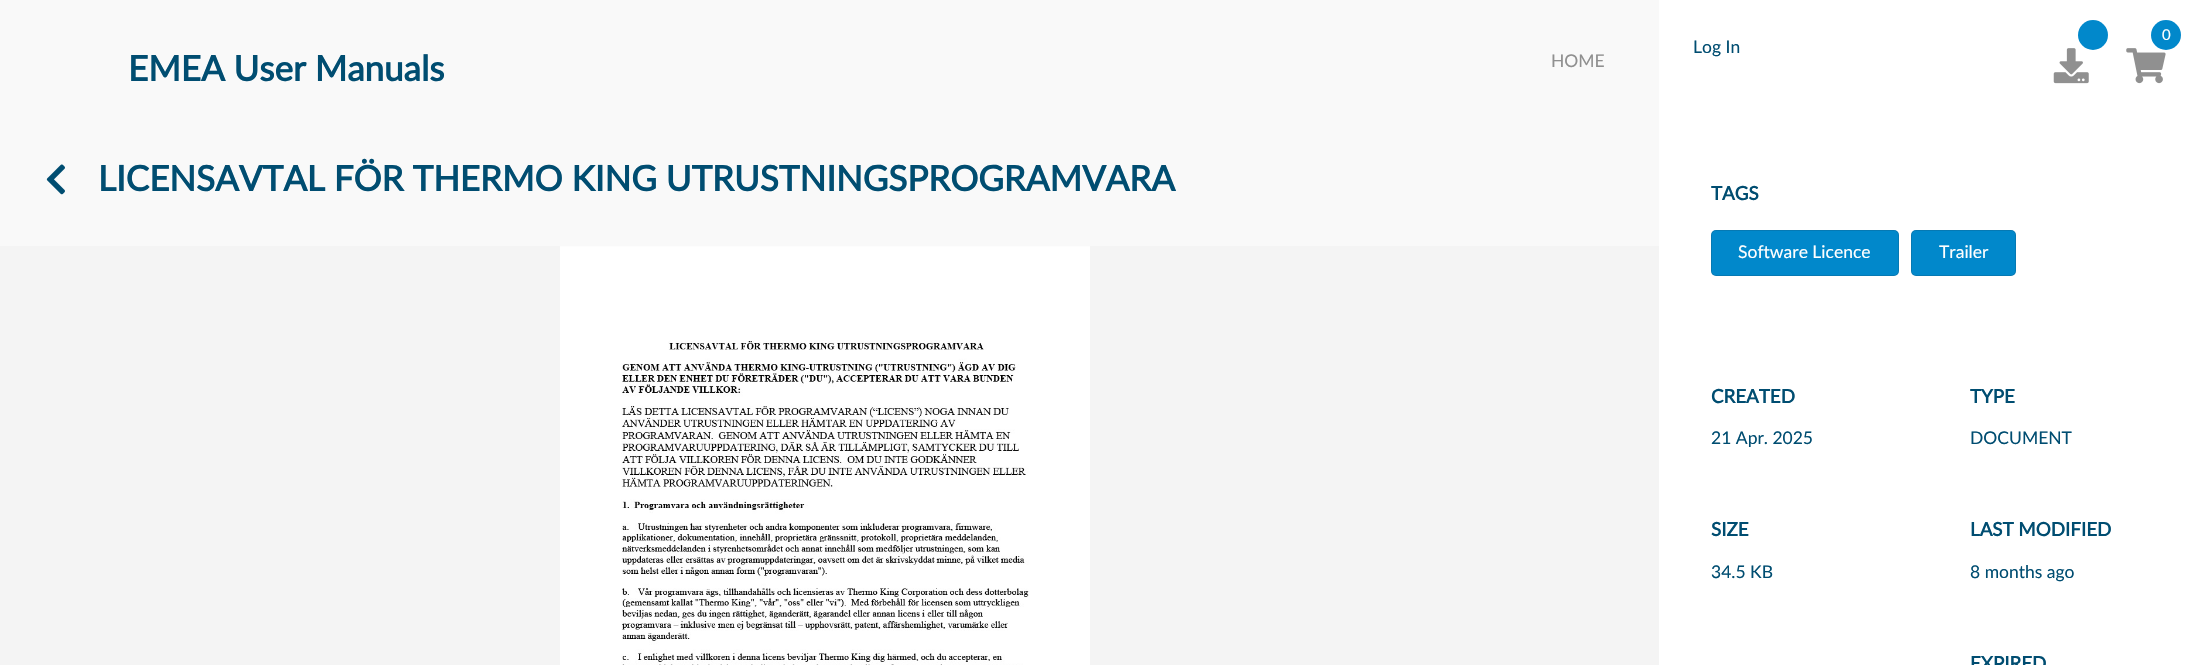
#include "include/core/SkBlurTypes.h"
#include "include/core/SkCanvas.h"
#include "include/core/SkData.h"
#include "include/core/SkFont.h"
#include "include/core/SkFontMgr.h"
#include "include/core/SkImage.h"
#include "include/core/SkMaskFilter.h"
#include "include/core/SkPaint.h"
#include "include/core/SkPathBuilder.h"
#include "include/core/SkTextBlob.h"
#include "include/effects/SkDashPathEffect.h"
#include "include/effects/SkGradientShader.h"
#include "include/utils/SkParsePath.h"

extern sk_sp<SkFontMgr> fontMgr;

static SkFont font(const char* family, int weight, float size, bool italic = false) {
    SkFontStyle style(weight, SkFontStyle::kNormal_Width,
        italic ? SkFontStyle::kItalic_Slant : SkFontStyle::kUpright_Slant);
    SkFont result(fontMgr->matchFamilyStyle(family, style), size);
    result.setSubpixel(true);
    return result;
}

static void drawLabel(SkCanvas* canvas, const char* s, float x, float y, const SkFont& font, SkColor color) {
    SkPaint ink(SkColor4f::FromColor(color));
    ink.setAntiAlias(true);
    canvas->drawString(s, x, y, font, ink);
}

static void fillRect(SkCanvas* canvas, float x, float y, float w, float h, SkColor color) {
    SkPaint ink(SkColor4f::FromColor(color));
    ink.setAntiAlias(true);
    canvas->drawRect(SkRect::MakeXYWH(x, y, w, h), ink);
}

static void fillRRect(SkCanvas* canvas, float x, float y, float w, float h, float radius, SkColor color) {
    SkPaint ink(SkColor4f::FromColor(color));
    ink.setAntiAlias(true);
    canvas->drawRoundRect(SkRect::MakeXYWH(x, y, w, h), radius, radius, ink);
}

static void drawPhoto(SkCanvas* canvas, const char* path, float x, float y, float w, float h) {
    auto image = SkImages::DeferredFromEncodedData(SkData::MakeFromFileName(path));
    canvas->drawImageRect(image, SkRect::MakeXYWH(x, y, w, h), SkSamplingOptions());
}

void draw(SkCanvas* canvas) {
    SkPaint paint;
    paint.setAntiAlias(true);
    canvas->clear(0xFFF9F9F9);
    SkFont font1 = font("Lato", 700, 35);
    drawLabel(canvas, "EMEA User Manuals", 128, 81, font1, 0xFF004D71);
    SkFont font2 = font("Lato", 400, 17.5f);
    drawLabel(canvas, "HOME", 1551, 67, font2, 0xFF909090);
    drawPhoto(canvas, "assets/img1.png", 46, 164, 19, 31);
    drawLabel(canvas, "LICENSAVTAL FÖR THERMO KING UTRUSTNINGSPROGRAMVARA", 98, 191, font1, 0xFF004D71);
    fillRect(canvas, 0, 246, 1659, 419, 0xFFF4F4F4);
    drawPhoto(canvas, "assets/img2.png", 560, 246, 530, 419);
    fillRect(canvas, 1659, 0, 552, 665, 0xFFFFFFFF);
    drawPhoto(canvas, "assets/img3.png", 2053, 48, 36, 36);
    paint.setColor(0xFF0188CB);
    canvas->drawCircle(2093, 35, 15, paint);
    drawPhoto(canvas, "assets/img4.png", 2126, 48, 40, 36);
    canvas->drawCircle(2166, 35, 15, paint);
    SkFont font3 = font("Lato", 400, 15);
    drawLabel(canvas, "0", 2162, 40, font3, 0xFFFFFFFF);
    drawLabel(canvas, "Log In", 1693, 53, font2, 0xFF004D71);
    SkFont font4 = font("Lato", 700, 18.75f);
    drawLabel(canvas, "TAGS", 1711, 200, font4, 0xFF004D71);
    fillRRect(canvas, 1711, 230, 188, 46, 5, 0xFF0188CB);
    paint.setStroke(true);
    paint.setStrokeWidth(1);
    paint.setColor(0x26222426);
    canvas->drawRoundRect(SkRect::MakeXYWH(1711.5f, 230.5f, 187, 45), 4.5f, 4.5f, paint);
    drawLabel(canvas, "Software Licence", 1738, 258, font2, 0xFFFFFFFF);
    fillRRect(canvas, 1911, 230, 105, 46, 5, 0xFF0188CB);
    canvas->drawRoundRect(SkRect::MakeXYWH(1911.5f, 230.5f, 104, 45), 4.5f, 4.5f, paint);
    drawLabel(canvas, "Trailer", 1939, 258, font2, 0xFFFFFFFF);
    drawLabel(canvas, "CREATED", 1711, 403, font4, 0xFF004D71);
    drawLabel(canvas, "21 Apr. 2025", 1711, 444, font2, 0xFF004D71);
    drawLabel(canvas, "TYPE", 1970, 403, font4, 0xFF004D71);
    drawLabel(canvas, "DOCUMENT", 1970, 444, font2, 0xFF004D71);
    drawLabel(canvas, "SIZE", 1711, 536, font4, 0xFF004D71);
    drawLabel(canvas, "34.5 KB", 1711, 578, font2, 0xFF004D71);
    drawLabel(canvas, "LAST MODIFIED", 1970, 536, font4, 0xFF004D71);
    drawLabel(canvas, "8 months ago", 1970, 578, font2, 0xFF004D71);
    drawLabel(canvas, "EXPIRED", 1970, 670, font4, 0xFF004D71);
}
